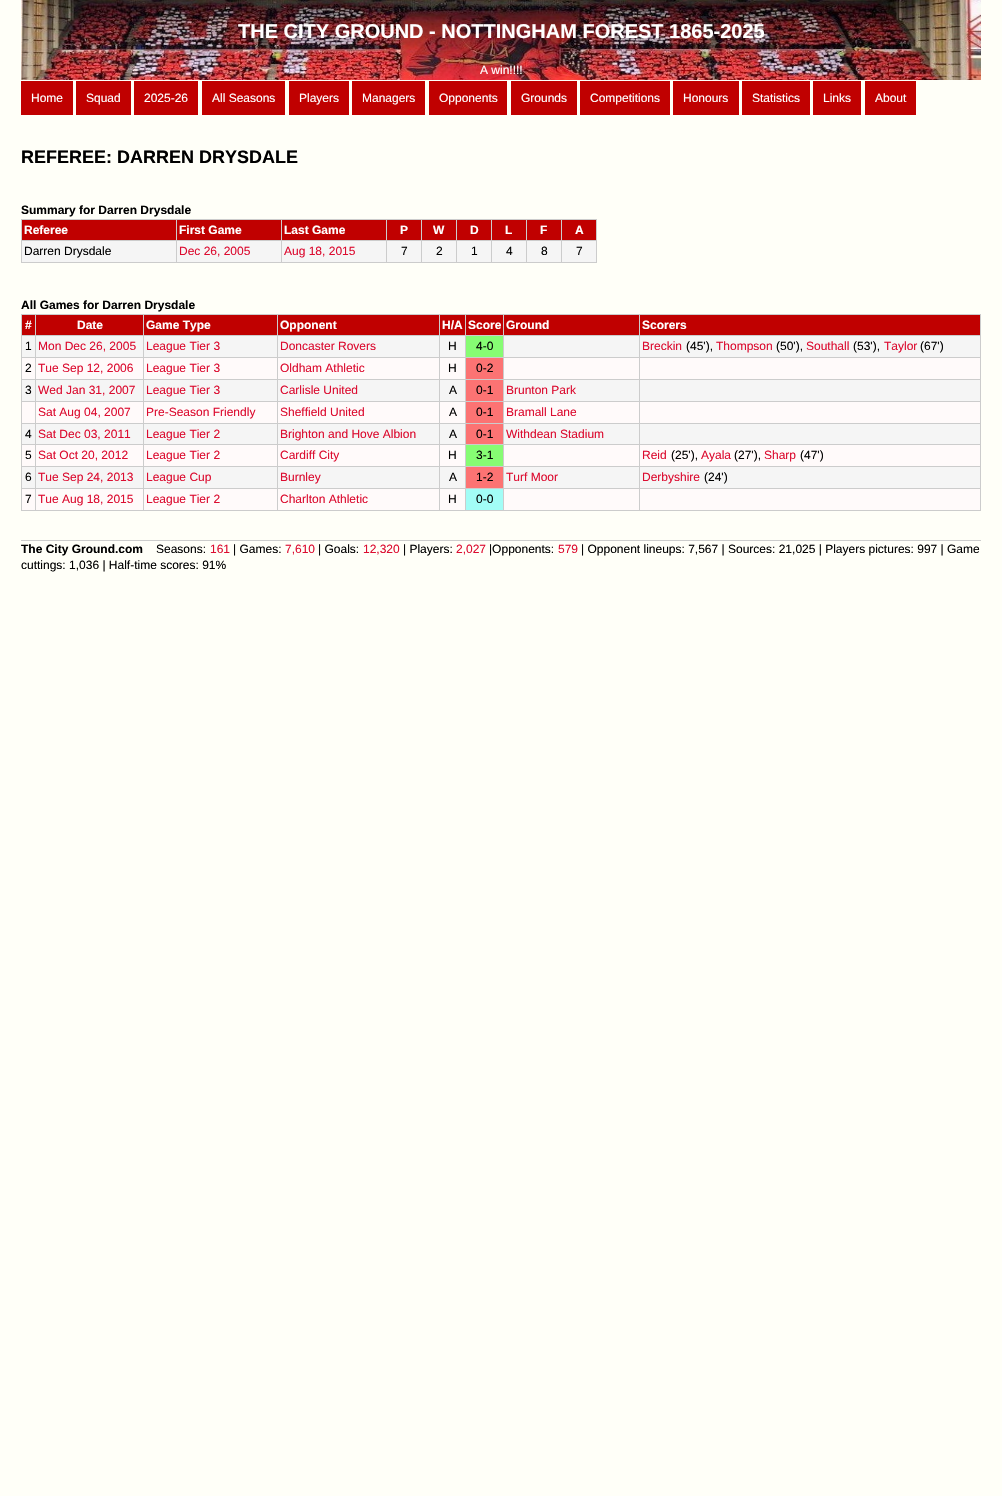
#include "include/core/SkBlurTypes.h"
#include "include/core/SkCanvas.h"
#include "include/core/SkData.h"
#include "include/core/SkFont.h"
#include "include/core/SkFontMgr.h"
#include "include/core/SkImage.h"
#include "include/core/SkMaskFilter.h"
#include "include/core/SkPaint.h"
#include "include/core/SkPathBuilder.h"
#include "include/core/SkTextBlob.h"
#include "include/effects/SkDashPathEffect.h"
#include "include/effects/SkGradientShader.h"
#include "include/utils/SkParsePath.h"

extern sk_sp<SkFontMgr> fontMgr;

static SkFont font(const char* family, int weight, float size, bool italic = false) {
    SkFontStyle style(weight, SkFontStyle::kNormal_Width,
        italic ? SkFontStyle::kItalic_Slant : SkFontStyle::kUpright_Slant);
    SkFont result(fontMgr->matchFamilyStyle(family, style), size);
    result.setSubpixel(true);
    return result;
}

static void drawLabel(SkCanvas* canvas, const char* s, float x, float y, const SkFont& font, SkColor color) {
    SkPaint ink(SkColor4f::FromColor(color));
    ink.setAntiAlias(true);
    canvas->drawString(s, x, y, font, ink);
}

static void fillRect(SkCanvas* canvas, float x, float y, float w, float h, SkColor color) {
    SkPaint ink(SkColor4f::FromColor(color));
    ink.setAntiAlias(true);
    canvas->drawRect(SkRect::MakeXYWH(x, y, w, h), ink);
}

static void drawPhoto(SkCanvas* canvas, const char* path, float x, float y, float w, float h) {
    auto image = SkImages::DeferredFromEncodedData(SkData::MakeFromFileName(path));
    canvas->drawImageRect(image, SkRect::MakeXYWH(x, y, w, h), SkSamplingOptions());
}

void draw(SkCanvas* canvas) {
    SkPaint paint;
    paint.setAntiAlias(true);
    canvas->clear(0xFFFFFFF8);
    drawPhoto(canvas, "assets/img1.png", 21, 0, 960, 80);
    SkFont font1 = font("Liberation Sans", 700, 20);
    drawLabel(canvas, "THE CITY GROUND - NOTTINGHAM FOREST 1865-2025", 238, 38, font1, 0xFFFFFFFF);
    SkFont font2 = font("Liberation Sans", 400, 12);
    drawLabel(canvas, "A win!!!!", 480, 74, font2, 0xFFFFFFFF);
    fillRect(canvas, 21, 81, 52, 34, 0xFFC00000);
    drawLabel(canvas, "Home", 31, 102, font2, 0xFFFFFFFF);
    fillRect(canvas, 76, 81, 55, 34, 0xFFC00000);
    drawLabel(canvas, "Squad", 86, 102, font2, 0xFFFFFFFF);
    fillRect(canvas, 134, 81, 64, 34, 0xFFC00000);
    drawLabel(canvas, "2025-26", 144, 102, font2, 0xFFFFFFFF);
    fillRect(canvas, 202, 81, 83, 34, 0xFFC00000);
    drawLabel(canvas, "All Seasons", 212, 102, font2, 0xFFFFFFFF);
    fillRect(canvas, 289, 81, 60, 34, 0xFFC00000);
    drawLabel(canvas, "Players", 299, 102, font2, 0xFFFFFFFF);
    fillRect(canvas, 352, 81, 73, 34, 0xFFC00000);
    drawLabel(canvas, "Managers", 362, 102, font2, 0xFFFFFFFF);
    fillRect(canvas, 429, 81, 78, 34, 0xFFC00000);
    drawLabel(canvas, "Opponents", 439, 102, font2, 0xFFFFFFFF);
    fillRect(canvas, 511, 81, 66, 34, 0xFFC00000);
    drawLabel(canvas, "Grounds", 521, 102, font2, 0xFFFFFFFF);
    fillRect(canvas, 580, 81, 90, 34, 0xFFC00000);
    drawLabel(canvas, "Competitions", 590, 102, font2, 0xFFFFFFFF);
    fillRect(canvas, 673, 81, 66, 34, 0xFFC00000);
    drawLabel(canvas, "Honours", 683, 102, font2, 0xFFFFFFFF);
    fillRect(canvas, 742, 81, 68, 34, 0xFFC00000);
    drawLabel(canvas, "Statistics", 752, 102, font2, 0xFFFFFFFF);
    fillRect(canvas, 813, 81, 48, 34, 0xFFC00000);
    drawLabel(canvas, "Links", 823, 102, font2, 0xFFFFFFFF);
    fillRect(canvas, 865, 81, 51, 34, 0xFFC00000);
    drawLabel(canvas, "About", 875, 102, font2, 0xFFFFFFFF);
    SkFont font3 = font("Liberation Sans", 700, 18);
    drawLabel(canvas, "REFEREE: DARREN DRYSDALE", 21, 163, font3, 0xFF000000);
    SkFont font4 = font("Liberation Sans", 700, 12);
    drawLabel(canvas, "Summary for Darren Drysdale", 21, 214, font4, 0xFF000000);
    fillRect(canvas, 21, 219, 576, 1, 0xFFCCCCCC);
    fillRect(canvas, 596, 219, 1, 44, 0xFFCCCCCC);
    fillRect(canvas, 21, 262, 576, 1, 0xFFCCCCCC);
    fillRect(canvas, 21, 219, 1, 44, 0xFFCCCCCC);
    fillRect(canvas, 22, 220, 154, 20, 0xFFC00000);
    drawLabel(canvas, "Referee", 24, 234, font4, 0xFFFFFFFF);
    fillRect(canvas, 177, 220, 104, 20, 0xFFC00000);
    fillRect(canvas, 561, 240, 36, 1, 0xFFCCCCCC);
    fillRect(canvas, 22, 241, 574, 21, 0xFFF5F5F5);
    fillRect(canvas, 561, 240, 1, 23, 0xFFCCCCCC);
    fillRect(canvas, 526, 240, 36, 1, 0xFFCCCCCC);
    fillRect(canvas, 526, 240, 1, 23, 0xFFCCCCCC);
    fillRect(canvas, 491, 240, 36, 1, 0xFFCCCCCC);
    fillRect(canvas, 491, 240, 1, 23, 0xFFCCCCCC);
    fillRect(canvas, 456, 240, 36, 1, 0xFFCCCCCC);
    fillRect(canvas, 456, 240, 1, 23, 0xFFCCCCCC);
    fillRect(canvas, 421, 240, 36, 1, 0xFFCCCCCC);
    fillRect(canvas, 421, 240, 1, 23, 0xFFCCCCCC);
    fillRect(canvas, 386, 240, 36, 1, 0xFFCCCCCC);
    fillRect(canvas, 386, 240, 1, 23, 0xFFCCCCCC);
    fillRect(canvas, 281, 240, 106, 1, 0xFFCCCCCC);
    fillRect(canvas, 281, 240, 1, 23, 0xFFCCCCCC);
    fillRect(canvas, 176, 240, 106, 1, 0xFFCCCCCC);
    fillRect(canvas, 176, 240, 1, 23, 0xFFCCCCCC);
    fillRect(canvas, 21, 240, 156, 1, 0xFFCCCCCC);
    fillRect(canvas, 176, 219, 1, 22, 0xFFCCCCCC);
    drawLabel(canvas, "First Game", 179, 234, font4, 0xFFFFFFFF);
    fillRect(canvas, 282, 220, 104, 20, 0xFFC00000);
    fillRect(canvas, 281, 219, 1, 22, 0xFFCCCCCC);
    drawLabel(canvas, "Last Game", 284, 234, font4, 0xFFFFFFFF);
    fillRect(canvas, 387, 220, 34, 20, 0xFFC00000);
    fillRect(canvas, 386, 219, 1, 22, 0xFFCCCCCC);
    drawLabel(canvas, "P", 400, 234, font4, 0xFFFFFFFF);
    fillRect(canvas, 422, 220, 34, 20, 0xFFC00000);
    fillRect(canvas, 421, 219, 1, 22, 0xFFCCCCCC);
    drawLabel(canvas, "W", 433, 234, font4, 0xFFFFFFFF);
    fillRect(canvas, 457, 220, 34, 20, 0xFFC00000);
    fillRect(canvas, 456, 219, 1, 22, 0xFFCCCCCC);
    drawLabel(canvas, "D", 470, 234, font4, 0xFFFFFFFF);
    fillRect(canvas, 492, 220, 34, 20, 0xFFC00000);
    fillRect(canvas, 491, 219, 1, 22, 0xFFCCCCCC);
    drawLabel(canvas, "L", 505, 234, font4, 0xFFFFFFFF);
    fillRect(canvas, 527, 220, 34, 20, 0xFFC00000);
    fillRect(canvas, 526, 219, 1, 22, 0xFFCCCCCC);
    drawLabel(canvas, "F", 540, 234, font4, 0xFFFFFFFF);
    fillRect(canvas, 562, 220, 34, 20, 0xFFC00000);
    fillRect(canvas, 561, 219, 1, 22, 0xFFCCCCCC);
    drawLabel(canvas, "A", 575, 234, font4, 0xFFFFFFFF);
    drawLabel(canvas, "Darren Drysdale", 24, 255, font2, 0xFF000000);
    drawLabel(canvas, "Dec 26, 2005", 179, 255, font2, 0xFFDC0C30);
    drawLabel(canvas, "Aug 18, 2015", 284, 255, font2, 0xFFDC0C30);
    drawLabel(canvas, "7", 401, 255, font2, 0xFF000000);
    drawLabel(canvas, "2", 436, 255, font2, 0xFF000000);
    drawLabel(canvas, "1", 471, 255, font2, 0xFF000000);
    drawLabel(canvas, "4", 506, 255, font2, 0xFF000000);
    drawLabel(canvas, "8", 541, 255, font2, 0xFF000000);
    drawLabel(canvas, "7", 576, 255, font2, 0xFF000000);
    drawLabel(canvas, "All Games for Darren Drysdale", 21, 309, font4, 0xFF000000);
    fillRect(canvas, 21, 314, 960, 1, 0xFFCCCCCC);
    fillRect(canvas, 980, 314, 1, 197, 0xFFCCCCCC);
    fillRect(canvas, 21, 510, 960, 1, 0xFFCCCCCC);
    fillRect(canvas, 21, 314, 1, 197, 0xFFCCCCCC);
    fillRect(canvas, 22, 315, 13, 20, 0xFFC00000);
    drawLabel(canvas, "#", 25, 329, font4, 0xFFFFFFFF);
    fillRect(canvas, 36, 315, 107, 20, 0xFFC00000);
    fillRect(canvas, 639, 335, 342, 1, 0xFFCCCCCC);
    fillRect(canvas, 22, 336, 958, 21, 0xFFF5F5F5);
    fillRect(canvas, 639, 357, 342, 1, 0xFFCCCCCC);
    fillRect(canvas, 22, 358, 958, 21, 0xFFFFFAFA);
    fillRect(canvas, 639, 379, 342, 1, 0xFFCCCCCC);
    fillRect(canvas, 22, 380, 958, 21, 0xFFF5F5F5);
    fillRect(canvas, 639, 401, 342, 1, 0xFFCCCCCC);
    fillRect(canvas, 22, 402, 958, 21, 0xFFFFFAFA);
    fillRect(canvas, 639, 423, 342, 1, 0xFFCCCCCC);
    fillRect(canvas, 22, 424, 958, 20, 0xFFF5F5F5);
    fillRect(canvas, 639, 444, 342, 1, 0xFFCCCCCC);
    fillRect(canvas, 22, 445, 958, 21, 0xFFFFFAFA);
    fillRect(canvas, 639, 466, 342, 1, 0xFFCCCCCC);
    fillRect(canvas, 22, 467, 958, 21, 0xFFF5F5F5);
    fillRect(canvas, 639, 488, 342, 1, 0xFFCCCCCC);
    fillRect(canvas, 22, 489, 958, 21, 0xFFFFFAFA);
    fillRect(canvas, 639, 488, 1, 23, 0xFFCCCCCC);
    fillRect(canvas, 503, 488, 137, 1, 0xFFCCCCCC);
    fillRect(canvas, 639, 466, 1, 23, 0xFFCCCCCC);
    fillRect(canvas, 503, 466, 137, 1, 0xFFCCCCCC);
    fillRect(canvas, 639, 444, 1, 23, 0xFFCCCCCC);
    fillRect(canvas, 503, 444, 137, 1, 0xFFCCCCCC);
    fillRect(canvas, 639, 423, 1, 22, 0xFFCCCCCC);
    fillRect(canvas, 503, 423, 137, 1, 0xFFCCCCCC);
    fillRect(canvas, 639, 401, 1, 23, 0xFFCCCCCC);
    fillRect(canvas, 503, 401, 137, 1, 0xFFCCCCCC);
    fillRect(canvas, 639, 379, 1, 23, 0xFFCCCCCC);
    fillRect(canvas, 503, 379, 137, 1, 0xFFCCCCCC);
    fillRect(canvas, 639, 357, 1, 23, 0xFFCCCCCC);
    fillRect(canvas, 503, 357, 137, 1, 0xFFCCCCCC);
    fillRect(canvas, 639, 335, 1, 23, 0xFFCCCCCC);
    fillRect(canvas, 503, 335, 137, 1, 0xFFCCCCCC);
    fillRect(canvas, 503, 488, 1, 23, 0xFFCCCCCC);
    fillRect(canvas, 465, 488, 39, 1, 0xFFCCCCCC);
    fillRect(canvas, 503, 466, 1, 23, 0xFFCCCCCC);
    fillRect(canvas, 465, 466, 39, 1, 0xFFCCCCCC);
    fillRect(canvas, 503, 444, 1, 23, 0xFFCCCCCC);
    fillRect(canvas, 465, 444, 39, 1, 0xFFCCCCCC);
    fillRect(canvas, 503, 423, 1, 22, 0xFFCCCCCC);
    fillRect(canvas, 465, 423, 39, 1, 0xFFCCCCCC);
    fillRect(canvas, 503, 401, 1, 23, 0xFFCCCCCC);
    fillRect(canvas, 465, 401, 39, 1, 0xFFCCCCCC);
    fillRect(canvas, 503, 379, 1, 23, 0xFFCCCCCC);
    fillRect(canvas, 465, 379, 39, 1, 0xFFCCCCCC);
    fillRect(canvas, 503, 357, 1, 23, 0xFFCCCCCC);
    fillRect(canvas, 465, 357, 39, 1, 0xFFCCCCCC);
    fillRect(canvas, 503, 335, 1, 23, 0xFFCCCCCC);
    fillRect(canvas, 465, 335, 39, 1, 0xFFCCCCCC);
    fillRect(canvas, 465, 488, 1, 23, 0xFFCCCCCC);
    fillRect(canvas, 439, 488, 27, 1, 0xFFCCCCCC);
    fillRect(canvas, 465, 466, 1, 23, 0xFFCCCCCC);
    fillRect(canvas, 439, 466, 27, 1, 0xFFCCCCCC);
    fillRect(canvas, 465, 444, 1, 23, 0xFFCCCCCC);
    fillRect(canvas, 439, 444, 27, 1, 0xFFCCCCCC);
    fillRect(canvas, 465, 423, 1, 22, 0xFFCCCCCC);
    fillRect(canvas, 439, 423, 27, 1, 0xFFCCCCCC);
    fillRect(canvas, 465, 401, 1, 23, 0xFFCCCCCC);
    fillRect(canvas, 439, 401, 27, 1, 0xFFCCCCCC);
    fillRect(canvas, 465, 379, 1, 23, 0xFFCCCCCC);
    fillRect(canvas, 439, 379, 27, 1, 0xFFCCCCCC);
    fillRect(canvas, 465, 357, 1, 23, 0xFFCCCCCC);
    fillRect(canvas, 439, 357, 27, 1, 0xFFCCCCCC);
    fillRect(canvas, 465, 335, 1, 23, 0xFFCCCCCC);
    fillRect(canvas, 439, 335, 27, 1, 0xFFCCCCCC);
    fillRect(canvas, 439, 488, 1, 23, 0xFFCCCCCC);
    fillRect(canvas, 277, 488, 163, 1, 0xFFCCCCCC);
    fillRect(canvas, 439, 466, 1, 23, 0xFFCCCCCC);
    fillRect(canvas, 277, 466, 163, 1, 0xFFCCCCCC);
    fillRect(canvas, 439, 444, 1, 23, 0xFFCCCCCC);
    fillRect(canvas, 277, 444, 163, 1, 0xFFCCCCCC);
    fillRect(canvas, 439, 423, 1, 22, 0xFFCCCCCC);
    fillRect(canvas, 277, 423, 163, 1, 0xFFCCCCCC);
    fillRect(canvas, 439, 401, 1, 23, 0xFFCCCCCC);
    fillRect(canvas, 277, 401, 163, 1, 0xFFCCCCCC);
    fillRect(canvas, 439, 379, 1, 23, 0xFFCCCCCC);
    fillRect(canvas, 277, 379, 163, 1, 0xFFCCCCCC);
    fillRect(canvas, 439, 357, 1, 23, 0xFFCCCCCC);
    fillRect(canvas, 277, 357, 163, 1, 0xFFCCCCCC);
    fillRect(canvas, 439, 335, 1, 23, 0xFFCCCCCC);
    fillRect(canvas, 277, 335, 163, 1, 0xFFCCCCCC);
    fillRect(canvas, 277, 488, 1, 23, 0xFFCCCCCC);
    fillRect(canvas, 143, 488, 135, 1, 0xFFCCCCCC);
    fillRect(canvas, 277, 466, 1, 23, 0xFFCCCCCC);
    fillRect(canvas, 143, 466, 135, 1, 0xFFCCCCCC);
    fillRect(canvas, 277, 444, 1, 23, 0xFFCCCCCC);
    fillRect(canvas, 143, 444, 135, 1, 0xFFCCCCCC);
    fillRect(canvas, 277, 423, 1, 22, 0xFFCCCCCC);
    fillRect(canvas, 143, 423, 135, 1, 0xFFCCCCCC);
    fillRect(canvas, 277, 401, 1, 23, 0xFFCCCCCC);
    fillRect(canvas, 143, 401, 135, 1, 0xFFCCCCCC);
    fillRect(canvas, 277, 379, 1, 23, 0xFFCCCCCC);
    fillRect(canvas, 143, 379, 135, 1, 0xFFCCCCCC);
    fillRect(canvas, 277, 357, 1, 23, 0xFFCCCCCC);
    fillRect(canvas, 143, 357, 135, 1, 0xFFCCCCCC);
    fillRect(canvas, 277, 335, 1, 23, 0xFFCCCCCC);
    fillRect(canvas, 143, 335, 135, 1, 0xFFCCCCCC);
    fillRect(canvas, 143, 488, 1, 23, 0xFFCCCCCC);
    fillRect(canvas, 35, 488, 109, 1, 0xFFCCCCCC);
    fillRect(canvas, 143, 466, 1, 23, 0xFFCCCCCC);
    fillRect(canvas, 35, 466, 109, 1, 0xFFCCCCCC);
    fillRect(canvas, 143, 444, 1, 23, 0xFFCCCCCC);
    fillRect(canvas, 35, 444, 109, 1, 0xFFCCCCCC);
    fillRect(canvas, 143, 423, 1, 22, 0xFFCCCCCC);
    fillRect(canvas, 35, 423, 109, 1, 0xFFCCCCCC);
    fillRect(canvas, 143, 401, 1, 23, 0xFFCCCCCC);
    fillRect(canvas, 35, 401, 109, 1, 0xFFCCCCCC);
    fillRect(canvas, 143, 379, 1, 23, 0xFFCCCCCC);
    fillRect(canvas, 35, 379, 109, 1, 0xFFCCCCCC);
    fillRect(canvas, 143, 357, 1, 23, 0xFFCCCCCC);
    fillRect(canvas, 35, 357, 109, 1, 0xFFCCCCCC);
    fillRect(canvas, 143, 335, 1, 23, 0xFFCCCCCC);
    fillRect(canvas, 35, 335, 109, 1, 0xFFCCCCCC);
    fillRect(canvas, 35, 488, 1, 23, 0xFFCCCCCC);
    fillRect(canvas, 21, 488, 15, 1, 0xFFCCCCCC);
    fillRect(canvas, 35, 466, 1, 23, 0xFFCCCCCC);
    fillRect(canvas, 21, 466, 15, 1, 0xFFCCCCCC);
    fillRect(canvas, 35, 444, 1, 23, 0xFFCCCCCC);
    fillRect(canvas, 21, 444, 15, 1, 0xFFCCCCCC);
    fillRect(canvas, 35, 423, 1, 22, 0xFFCCCCCC);
    fillRect(canvas, 21, 423, 15, 1, 0xFFCCCCCC);
    fillRect(canvas, 35, 401, 1, 23, 0xFFCCCCCC);
    fillRect(canvas, 21, 401, 15, 1, 0xFFCCCCCC);
    fillRect(canvas, 35, 379, 1, 23, 0xFFCCCCCC);
    fillRect(canvas, 21, 379, 15, 1, 0xFFCCCCCC);
    fillRect(canvas, 35, 357, 1, 23, 0xFFCCCCCC);
    fillRect(canvas, 21, 357, 15, 1, 0xFFCCCCCC);
    fillRect(canvas, 35, 335, 1, 23, 0xFFCCCCCC);
    fillRect(canvas, 21, 335, 15, 1, 0xFFCCCCCC);
    fillRect(canvas, 35, 314, 1, 22, 0xFFCCCCCC);
    drawLabel(canvas, "Date", 77, 329, font4, 0xFFFFFFFF);
    fillRect(canvas, 144, 315, 133, 20, 0xFFC00000);
    fillRect(canvas, 143, 314, 1, 22, 0xFFCCCCCC);
    drawLabel(canvas, "Game Type", 146, 329, font4, 0xFFFFFFFF);
    fillRect(canvas, 278, 315, 161, 20, 0xFFC00000);
    fillRect(canvas, 277, 314, 1, 22, 0xFFCCCCCC);
    drawLabel(canvas, "Opponent", 280, 329, font4, 0xFFFFFFFF);
    fillRect(canvas, 440, 315, 25, 20, 0xFFC00000);
    fillRect(canvas, 439, 314, 1, 22, 0xFFCCCCCC);
    drawLabel(canvas, "H/A", 442, 329, font4, 0xFFFFFFFF);
    fillRect(canvas, 466, 315, 37, 20, 0xFFC00000);
    fillRect(canvas, 465, 314, 1, 22, 0xFFCCCCCC);
    drawLabel(canvas, "Score", 468, 329, font4, 0xFFFFFFFF);
    fillRect(canvas, 504, 315, 135, 20, 0xFFC00000);
    fillRect(canvas, 503, 314, 1, 22, 0xFFCCCCCC);
    drawLabel(canvas, "Ground", 506, 329, font4, 0xFFFFFFFF);
    fillRect(canvas, 640, 315, 340, 20, 0xFFC00000);
    fillRect(canvas, 639, 314, 1, 22, 0xFFCCCCCC);
    drawLabel(canvas, "Scorers", 642, 329, font4, 0xFFFFFFFF);
    drawLabel(canvas, "1", 25, 350, font2, 0xFF000000);
    drawLabel(canvas, "Mon Dec 26, 2005", 38, 350, font2, 0xFFDC0C30);
    drawLabel(canvas, "League Tier 3", 146, 350, font2, 0xFFDC0C30);
    drawLabel(canvas, "Doncaster Rovers", 280, 350, font2, 0xFFDC0C30);
    drawLabel(canvas, "H", 448, 350, font2, 0xFF000000);
    fillRect(canvas, 466, 336, 37, 21, 0xFF86FC73);
    drawLabel(canvas, "4-0", 476, 350, font2, 0xFF000000);
    drawLabel(canvas, "Breckin", 642, 350, font2, 0xFFDC0C30);
    drawLabel(canvas, "(45'),", 686, 350, font2, 0xFF000000);
    drawLabel(canvas, "Thompson", 716, 350, font2, 0xFFDC0C30);
    drawLabel(canvas, "(50'),", 776, 350, font2, 0xFF000000);
    drawLabel(canvas, "Southall", 806, 350, font2, 0xFFDC0C30);
    drawLabel(canvas, "(53'),", 853, 350, font2, 0xFF000000);
    drawLabel(canvas, "Taylor", 884, 350, font2, 0xFFDC0C30);
    drawLabel(canvas, "(67')", 920, 350, font2, 0xFF000000);
    drawLabel(canvas, "2", 25, 372, font2, 0xFF000000);
    drawLabel(canvas, "Tue Sep 12, 2006", 38, 372, font2, 0xFFDC0C30);
    drawLabel(canvas, "League Tier 3", 146, 372, font2, 0xFFDC0C30);
    drawLabel(canvas, "Oldham Athletic", 280, 372, font2, 0xFFDC0C30);
    drawLabel(canvas, "H", 448, 372, font2, 0xFF000000);
    fillRect(canvas, 466, 358, 37, 21, 0xFFFC7373);
    drawLabel(canvas, "0-2", 476, 372, font2, 0xFF000000);
    drawLabel(canvas, "3", 25, 394, font2, 0xFF000000);
    drawLabel(canvas, "Wed Jan 31, 2007", 38, 394, font2, 0xFFDC0C30);
    drawLabel(canvas, "League Tier 3", 146, 394, font2, 0xFFDC0C30);
    drawLabel(canvas, "Carlisle United", 280, 394, font2, 0xFFDC0C30);
    drawLabel(canvas, "A", 449, 394, font2, 0xFF000000);
    fillRect(canvas, 466, 380, 37, 21, 0xFFFC7373);
    drawLabel(canvas, "0-1", 476, 394, font2, 0xFF000000);
    drawLabel(canvas, "Brunton Park", 506, 394, font2, 0xFFDC0C30);
    drawLabel(canvas, "Sat Aug 04, 2007", 38, 416, font2, 0xFFDC0C30);
    drawLabel(canvas, "Pre-Season Friendly", 146, 416, font2, 0xFFDC0C30);
    drawLabel(canvas, "Sheffield United", 280, 416, font2, 0xFFDC0C30);
    drawLabel(canvas, "A", 449, 416, font2, 0xFF000000);
    fillRect(canvas, 466, 402, 37, 21, 0xFFFC7373);
    drawLabel(canvas, "0-1", 476, 416, font2, 0xFF000000);
    drawLabel(canvas, "Bramall Lane", 506, 416, font2, 0xFFDC0C30);
    drawLabel(canvas, "4", 25, 438, font2, 0xFF000000);
    drawLabel(canvas, "Sat Dec 03, 2011", 38, 438, font2, 0xFFDC0C30);
    drawLabel(canvas, "League Tier 2", 146, 438, font2, 0xFFDC0C30);
    drawLabel(canvas, "Brighton and Hove Albion", 280, 438, font2, 0xFFDC0C30);
    drawLabel(canvas, "A", 449, 438, font2, 0xFF000000);
    fillRect(canvas, 466, 424, 37, 20, 0xFFFC7373);
    drawLabel(canvas, "0-1", 476, 438, font2, 0xFF000000);
    drawLabel(canvas, "Withdean Stadium", 506, 438, font2, 0xFFDC0C30);
    drawLabel(canvas, "5", 25, 459, font2, 0xFF000000);
    drawLabel(canvas, "Sat Oct 20, 2012", 38, 459, font2, 0xFFDC0C30);
    drawLabel(canvas, "League Tier 2", 146, 459, font2, 0xFFDC0C30);
    drawLabel(canvas, "Cardiff City", 280, 459, font2, 0xFFDC0C30);
    drawLabel(canvas, "H", 448, 459, font2, 0xFF000000);
    fillRect(canvas, 466, 445, 37, 21, 0xFF86FC73);
    drawLabel(canvas, "3-1", 476, 459, font2, 0xFF000000);
    drawLabel(canvas, "Reid", 642, 459, font2, 0xFFDC0C30);
    drawLabel(canvas, "(25'),", 671, 459, font2, 0xFF000000);
    drawLabel(canvas, "Ayala", 701, 459, font2, 0xFFDC0C30);
    drawLabel(canvas, "(27'),", 734, 459, font2, 0xFF000000);
    drawLabel(canvas, "Sharp", 764, 459, font2, 0xFFDC0C30);
    drawLabel(canvas, "(47')", 800, 459, font2, 0xFF000000);
    drawLabel(canvas, "6", 25, 481, font2, 0xFF000000);
    drawLabel(canvas, "Tue Sep 24, 2013", 38, 481, font2, 0xFFDC0C30);
    drawLabel(canvas, "League Cup", 146, 481, font2, 0xFFDC0C30);
    drawLabel(canvas, "Burnley", 280, 481, font2, 0xFFDC0C30);
    drawLabel(canvas, "A", 449, 481, font2, 0xFF000000);
    fillRect(canvas, 466, 467, 37, 21, 0xFFFC7373);
    drawLabel(canvas, "1-2", 476, 481, font2, 0xFF000000);
    drawLabel(canvas, "Turf Moor", 506, 481, font2, 0xFFDC0C30);
    drawLabel(canvas, "Derbyshire", 642, 481, font2, 0xFFDC0C30);
    drawLabel(canvas, "(24')", 704, 481, font2, 0xFF000000);
    drawLabel(canvas, "7", 25, 503, font2, 0xFF000000);
    drawLabel(canvas, "Tue Aug 18, 2015", 38, 503, font2, 0xFFDC0C30);
    drawLabel(canvas, "League Tier 2", 146, 503, font2, 0xFFDC0C30);
    drawLabel(canvas, "Charlton Athletic", 280, 503, font2, 0xFFDC0C30);
    drawLabel(canvas, "H", 448, 503, font2, 0xFF000000);
    fillRect(canvas, 466, 489, 37, 21, 0xFFA2FDF6);
    drawLabel(canvas, "0-0", 476, 503, font2, 0xFF000000);
    fillRect(canvas, 21, 540, 960, 1, 0xFFCCCCCC);
    drawLabel(canvas, "The City Ground.com", 21, 553, font4, 0xFF000000);
    drawLabel(canvas, "Seasons:", 156, 553, font2, 0xFF000000);
    drawLabel(canvas, "161", 210, 553, font2, 0xFFDC0C30);
    drawLabel(canvas, "| Games:", 233, 553, font2, 0xFF000000);
    drawLabel(canvas, "7,610", 285, 553, font2, 0xFFDC0C30);
    drawLabel(canvas, "| Goals:", 318, 553, font2, 0xFF000000);
    drawLabel(canvas, "12,320", 363, 553, font2, 0xFFDC0C30);
    drawLabel(canvas, "| Players:", 403, 553, font2, 0xFF000000);
    drawLabel(canvas, "2,027", 456, 553, font2, 0xFFDC0C30);
    drawLabel(canvas, "|Opponents:", 489, 553, font2, 0xFF000000);
    drawLabel(canvas, "579", 558, 553, font2, 0xFFDC0C30);
    drawLabel(canvas, "| Opponent lineups: 7,567 | Sources: 21,025 | Players pictures: 997 | Game", 581, 553, font2, 0xFF000000);
    drawLabel(canvas, "cuttings: 1,036 | Half-time scores: 91%", 21, 569, font2, 0xFF000000);
}
